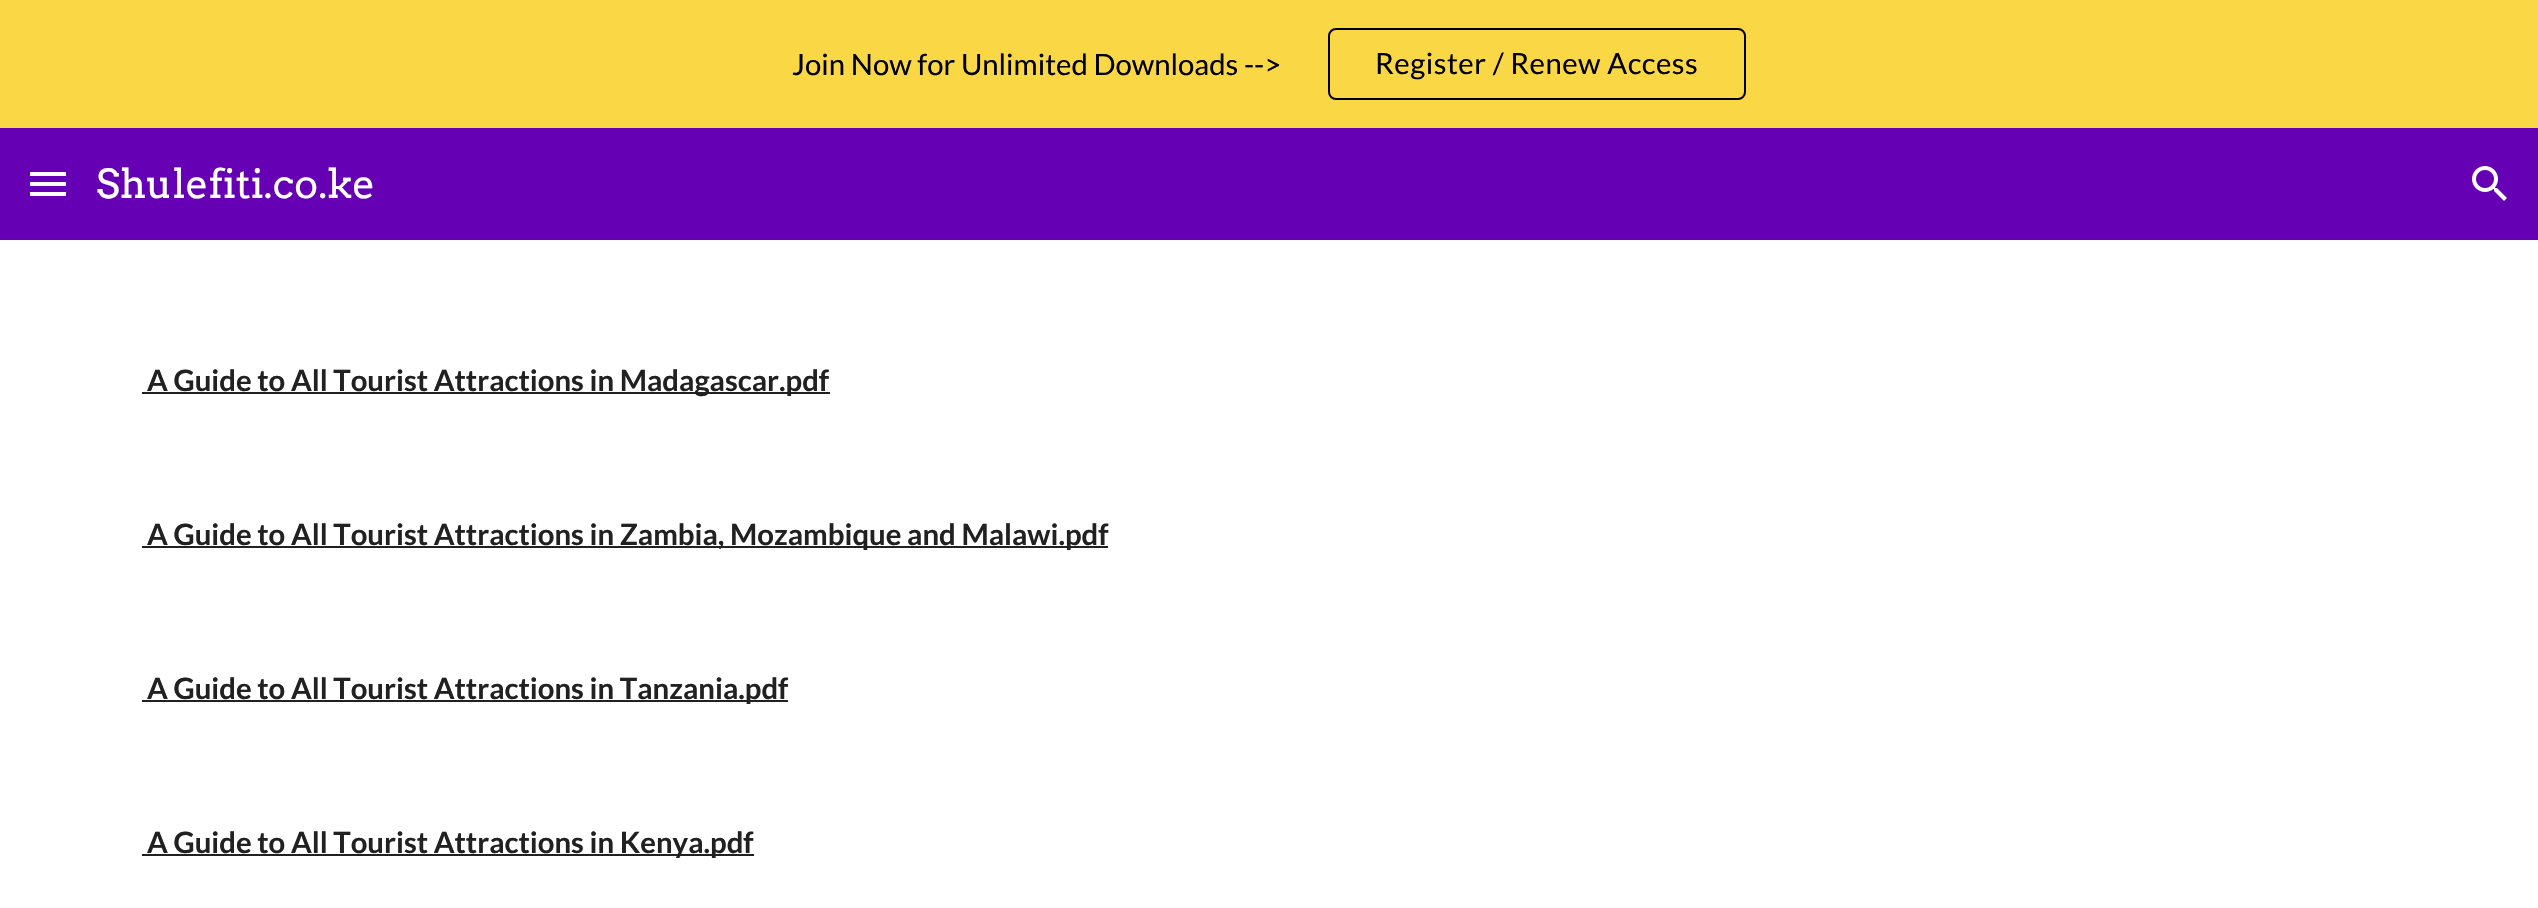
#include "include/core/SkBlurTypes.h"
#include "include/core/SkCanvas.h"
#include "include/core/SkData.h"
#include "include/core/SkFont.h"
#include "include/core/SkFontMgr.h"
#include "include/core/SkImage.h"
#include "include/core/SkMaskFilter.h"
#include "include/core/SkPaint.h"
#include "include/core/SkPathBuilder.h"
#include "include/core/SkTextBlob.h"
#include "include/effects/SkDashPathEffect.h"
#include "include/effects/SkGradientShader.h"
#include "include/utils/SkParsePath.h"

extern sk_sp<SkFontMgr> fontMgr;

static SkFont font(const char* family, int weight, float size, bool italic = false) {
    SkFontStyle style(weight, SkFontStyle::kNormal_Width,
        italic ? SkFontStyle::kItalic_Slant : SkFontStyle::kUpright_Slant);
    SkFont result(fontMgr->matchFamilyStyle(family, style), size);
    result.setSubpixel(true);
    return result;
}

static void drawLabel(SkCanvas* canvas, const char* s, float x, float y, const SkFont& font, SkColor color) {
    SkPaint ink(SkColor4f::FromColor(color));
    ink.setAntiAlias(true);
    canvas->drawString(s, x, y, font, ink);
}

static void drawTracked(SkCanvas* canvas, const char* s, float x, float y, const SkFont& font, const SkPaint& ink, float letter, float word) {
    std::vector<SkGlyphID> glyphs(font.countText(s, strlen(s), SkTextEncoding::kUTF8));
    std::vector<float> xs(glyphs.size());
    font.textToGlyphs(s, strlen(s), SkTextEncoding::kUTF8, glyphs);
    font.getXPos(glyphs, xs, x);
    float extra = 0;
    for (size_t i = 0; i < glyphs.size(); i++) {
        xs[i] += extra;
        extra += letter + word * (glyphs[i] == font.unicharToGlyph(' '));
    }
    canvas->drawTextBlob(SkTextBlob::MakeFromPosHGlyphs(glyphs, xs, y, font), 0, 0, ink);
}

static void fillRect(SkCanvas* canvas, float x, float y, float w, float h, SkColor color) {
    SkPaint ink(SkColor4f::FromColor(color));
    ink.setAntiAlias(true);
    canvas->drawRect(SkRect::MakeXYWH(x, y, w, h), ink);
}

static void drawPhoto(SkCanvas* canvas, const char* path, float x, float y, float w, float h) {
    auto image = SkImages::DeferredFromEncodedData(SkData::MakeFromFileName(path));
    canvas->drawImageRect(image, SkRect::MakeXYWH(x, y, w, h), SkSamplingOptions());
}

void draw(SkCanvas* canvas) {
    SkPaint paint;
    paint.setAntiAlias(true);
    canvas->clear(0xFFFFFFFF);
    fillRect(canvas, 0, 0, 2538, 128, 0xFFFAD744);
    SkFont font1 = font("Lato", 400, 29.3f);
    drawLabel(canvas, "Join Now for Unlimited Downloads -->", 792, 75, font1, 0xFF000000);
    paint.setStroke(true);
    paint.setStrokeWidth(2);
    paint.setColor(0xFF000000);
    canvas->drawRoundRect(SkRect::MakeXYWH(1329, 29, 416, 70), 7, 7, paint);
    paint.setStroke(false);
    drawTracked(canvas, "Register / Renew Access", 1375, 74, font1, paint, 0.5f, 0);
    fillRect(canvas, 0, 128, 2538, 112, 0xFF6600B4);
    fillRect(canvas, 30, 172, 36, 4, 0xFFFFFFFF);
    fillRect(canvas, 30, 182, 36, 4, 0xFFFFFFFF);
    fillRect(canvas, 30, 192, 36, 4, 0xFFFFFFFF);
    SkFont font2 = font("Arvo", 400, 40);
    drawLabel(canvas, "Shulefiti.co.ke", 96, 198, font2, 0xFFFFFFFF);
    drawPhoto(canvas, "assets/img1.png", 2472, 166, 35, 35);
    fillRect(canvas, 142, 392, 688, 2, 0xFF212121);
    SkFont font3 = font("Lato", 700, 29.3f);
    drawLabel(canvas, "A Guide to All Tourist Attractions in Madagascar.pdf", 147, 391, font3, 0xFF212121);
    fillRect(canvas, 142, 546, 966, 2, 0xFF212121);
    drawLabel(canvas, "A Guide to All Tourist Attractions in Zambia, Mozambique and Malawi.pdf", 147, 545, font3, 0xFF212121);
    fillRect(canvas, 142, 700, 646, 2, 0xFF212121);
    drawLabel(canvas, "A Guide to All Tourist Attractions in Tanzania.pdf", 147, 699, font3, 0xFF212121);
    fillRect(canvas, 142, 854, 612, 2, 0xFF212121);
    drawLabel(canvas, "A Guide to All Tourist Attractions in Kenya.pdf", 147, 853, font3, 0xFF212121);
}
